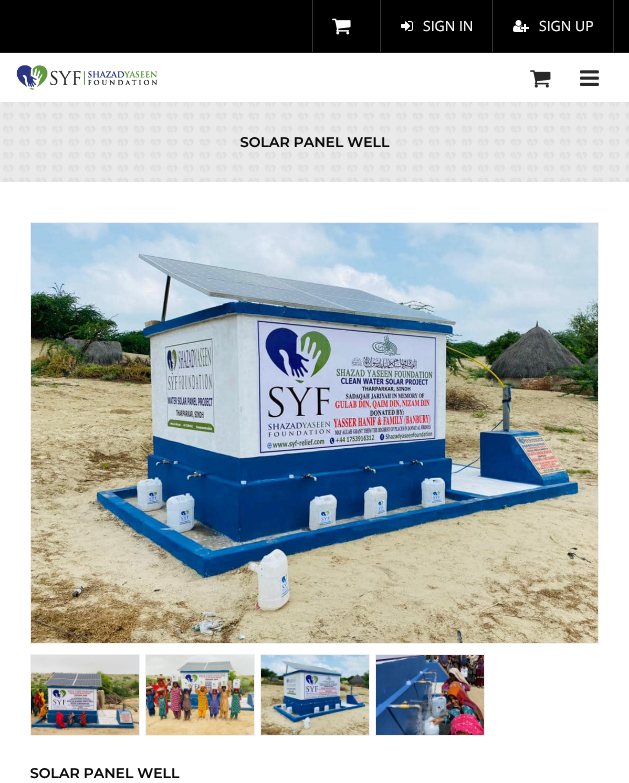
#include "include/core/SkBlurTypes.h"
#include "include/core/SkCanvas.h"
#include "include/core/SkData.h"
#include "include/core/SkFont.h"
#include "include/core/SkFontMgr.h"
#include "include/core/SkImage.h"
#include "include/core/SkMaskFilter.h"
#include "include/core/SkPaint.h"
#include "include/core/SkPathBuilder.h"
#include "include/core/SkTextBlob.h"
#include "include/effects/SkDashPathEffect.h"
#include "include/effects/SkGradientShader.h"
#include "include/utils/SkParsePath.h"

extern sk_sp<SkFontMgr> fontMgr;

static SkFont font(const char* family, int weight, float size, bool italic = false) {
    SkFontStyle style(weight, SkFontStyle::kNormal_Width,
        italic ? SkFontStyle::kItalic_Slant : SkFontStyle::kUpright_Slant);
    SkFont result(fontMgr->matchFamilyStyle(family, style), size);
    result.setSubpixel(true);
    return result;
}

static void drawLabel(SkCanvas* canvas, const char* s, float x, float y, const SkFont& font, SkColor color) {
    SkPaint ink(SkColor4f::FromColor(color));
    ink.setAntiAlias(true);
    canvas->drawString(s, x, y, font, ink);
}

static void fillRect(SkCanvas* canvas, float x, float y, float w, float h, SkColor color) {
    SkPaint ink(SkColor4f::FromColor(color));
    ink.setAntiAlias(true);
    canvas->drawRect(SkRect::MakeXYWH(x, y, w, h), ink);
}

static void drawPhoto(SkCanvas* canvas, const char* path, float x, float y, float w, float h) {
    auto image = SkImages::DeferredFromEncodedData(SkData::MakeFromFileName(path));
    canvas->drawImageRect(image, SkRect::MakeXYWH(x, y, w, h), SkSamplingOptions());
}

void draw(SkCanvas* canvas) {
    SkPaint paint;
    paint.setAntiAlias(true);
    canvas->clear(0xFFFFFFFF);
    fillRect(canvas, 0, 0, 629, 52, 0xFF000000);
    fillRect(canvas, 0, 52, 629, 1, 0xFF1A1A1A);
    fillRect(canvas, 312, 0, 1, 52, 0xFF333333);
    drawPhoto(canvas, "assets/img1.png", 332, 18, 19, 17);
    fillRect(canvas, 380, 0, 1, 52, 0xFF333333);
    drawPhoto(canvas, "assets/img2.png", 401, 21, 12, 10);
    SkFont font1 = font("Open Sans", 400, 14);
    drawLabel(canvas, "SIGN IN", 423, 31, font1, 0xFFFFFFFF);
    fillRect(canvas, 492, 0, 1, 52, 0xFF333333);
    drawPhoto(canvas, "assets/img3.png", 513, 20, 16, 12);
    drawLabel(canvas, "SIGN UP", 539, 31, font1, 0xFFFFFFFF);
    fillRect(canvas, 613, 0, 1, 52, 0xFF333333);
    drawPhoto(canvas, "assets/img4.png", 16, 65, 142, 25);
    drawPhoto(canvas, "assets/img5.png", 530, 70, 21, 18);
    drawPhoto(canvas, "assets/img6.png", 580, 70, 19, 16);
    drawPhoto(canvas, "assets/img12.png", 0, 102, 629, 80);
    SkFont font2 = font("Montserrat", 600, 14);
    drawLabel(canvas, "SOLAR PANEL WELL", 240, 147, font2, 0xFF0C0C0C);
    paint.setStroke(true);
    paint.setStrokeWidth(1);
    paint.setColor(0xFFF0F0F0);
    canvas->drawRect(SkRect::MakeXYWH(30.5f, 222.5f, 568, 421), paint);
    drawPhoto(canvas, "assets/img7.png", 31, 223, 567, 420);
    canvas->drawRect(SkRect::MakeXYWH(30.5f, 654.5f, 109, 81), paint);
    drawPhoto(canvas, "assets/img8.png", 31, 655, 108, 80);
    canvas->drawRect(SkRect::MakeXYWH(145.5f, 654.5f, 109, 81), paint);
    drawPhoto(canvas, "assets/img9.png", 146, 655, 108, 80);
    canvas->drawRect(SkRect::MakeXYWH(260.5f, 654.5f, 109, 81), paint);
    drawPhoto(canvas, "assets/img10.png", 261, 655, 108, 80);
    canvas->drawRect(SkRect::MakeXYWH(375.5f, 654.5f, 109, 81), paint);
    drawPhoto(canvas, "assets/img11.png", 376, 655, 108, 80);
    drawLabel(canvas, "SOLAR PANEL WELL", 30, 778, font2, 0xFF0C0C0C);
}
